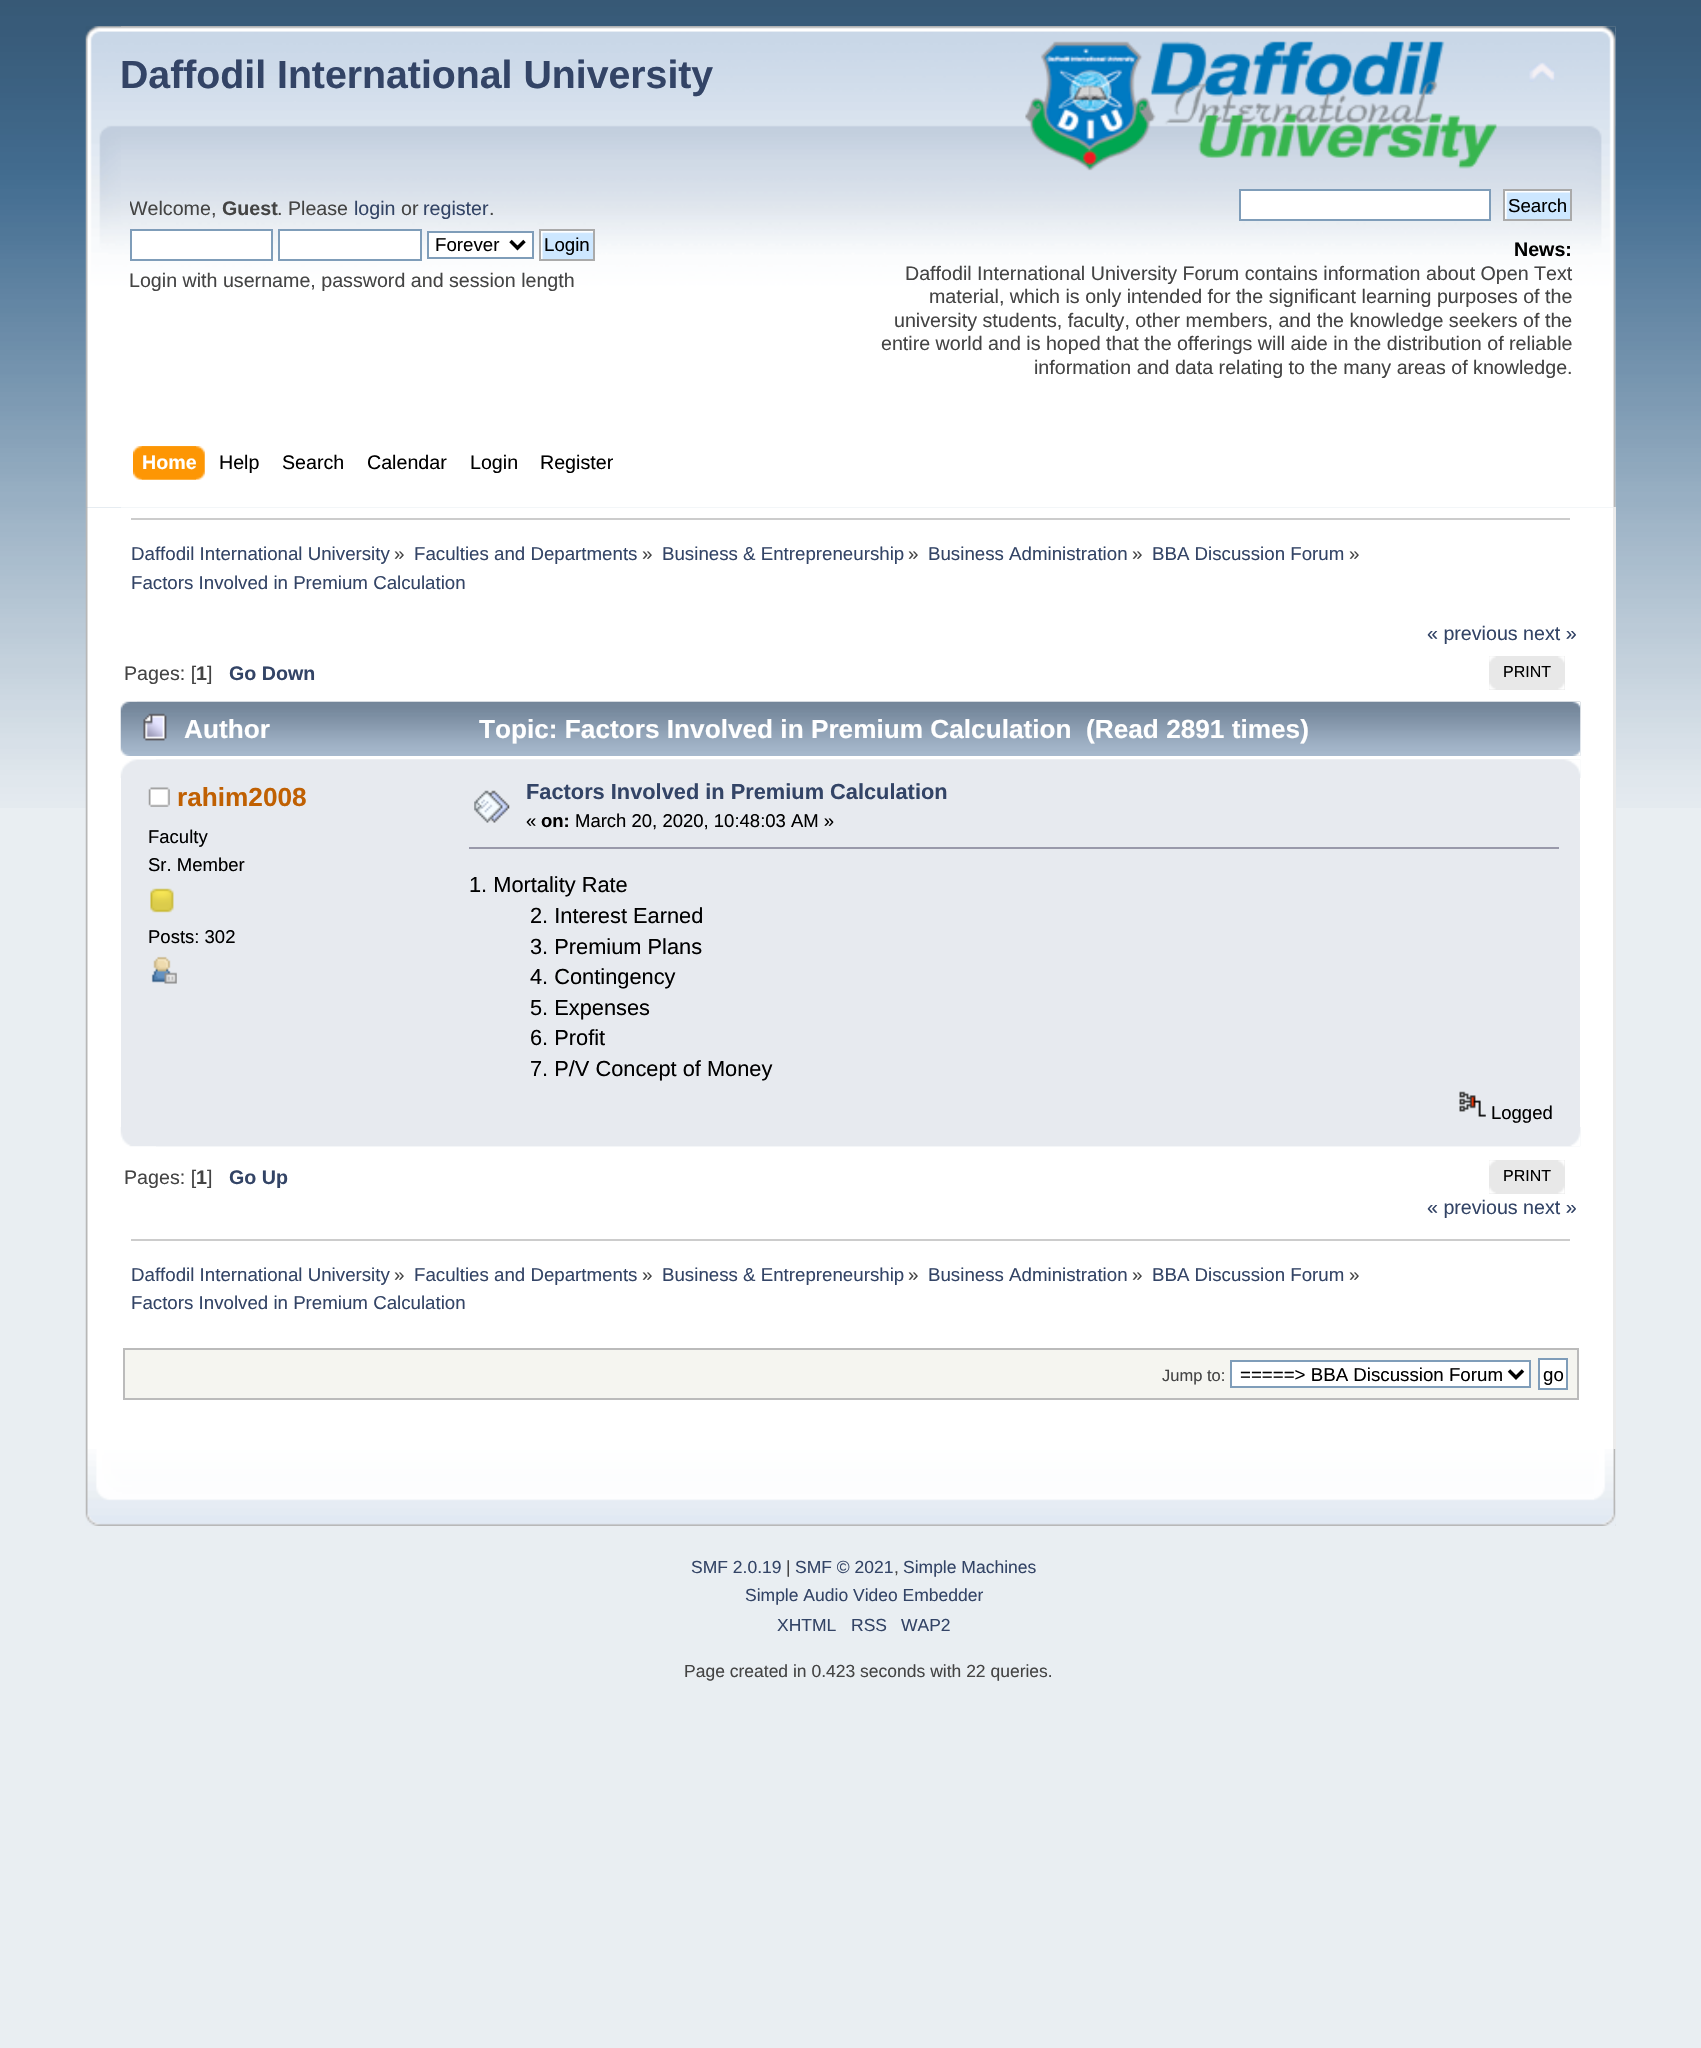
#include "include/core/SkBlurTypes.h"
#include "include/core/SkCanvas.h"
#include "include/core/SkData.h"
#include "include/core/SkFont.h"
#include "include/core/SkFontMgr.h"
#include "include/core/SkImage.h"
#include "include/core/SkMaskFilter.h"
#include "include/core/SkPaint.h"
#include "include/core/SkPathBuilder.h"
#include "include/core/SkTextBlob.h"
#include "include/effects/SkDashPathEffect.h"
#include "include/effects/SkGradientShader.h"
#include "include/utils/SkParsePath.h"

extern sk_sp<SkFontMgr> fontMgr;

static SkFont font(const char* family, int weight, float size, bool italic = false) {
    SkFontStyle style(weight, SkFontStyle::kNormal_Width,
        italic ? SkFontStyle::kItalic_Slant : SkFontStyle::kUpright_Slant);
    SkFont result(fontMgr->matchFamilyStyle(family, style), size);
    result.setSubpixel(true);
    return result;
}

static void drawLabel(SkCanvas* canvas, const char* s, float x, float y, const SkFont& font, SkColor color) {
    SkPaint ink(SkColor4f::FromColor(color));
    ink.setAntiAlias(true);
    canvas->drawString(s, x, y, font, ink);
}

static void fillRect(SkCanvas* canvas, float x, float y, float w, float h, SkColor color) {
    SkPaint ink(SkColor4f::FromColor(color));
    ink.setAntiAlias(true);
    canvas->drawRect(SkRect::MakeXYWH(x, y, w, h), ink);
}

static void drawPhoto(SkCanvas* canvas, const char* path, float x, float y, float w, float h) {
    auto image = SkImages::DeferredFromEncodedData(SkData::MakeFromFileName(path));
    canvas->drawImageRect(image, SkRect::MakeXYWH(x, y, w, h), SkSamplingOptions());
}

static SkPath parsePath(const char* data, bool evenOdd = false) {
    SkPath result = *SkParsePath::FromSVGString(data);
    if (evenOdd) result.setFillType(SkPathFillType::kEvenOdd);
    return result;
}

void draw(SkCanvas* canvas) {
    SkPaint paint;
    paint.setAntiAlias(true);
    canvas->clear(0xFFE9EEF2);
    drawPhoto(canvas, "assets/img1.png", 0, 0, 1701, 808);
    drawPhoto(canvas, "assets/img2.png", 85, 26, 1531, 482);
    drawPhoto(canvas, "assets/img3.png", 121, 26, 1495, 482);
    SkFont font1 = font("Liberation Sans", 700, 39.25f);
    drawLabel(canvas, "Daffodil International University", 120, 88, font1, 0xFF334466);
    drawPhoto(canvas, "assets/img4.png", 1025, 41, 472, 130);
    drawPhoto(canvas, "assets/img5.png", 1529, 62, 26, 20);
    canvas->save();
    canvas->clipRect(SkRect::MakeXYWH(130, 189, 721, 110));
    SkFont font2 = font("Liberation Sans", 400, 19.65f);
    drawLabel(canvas, "Welcome,", 129, 215, font2, 0xFF444444);
    canvas->restore();
    SkFont font3 = font("Liberation Sans", 700, 19.65f);
    drawLabel(canvas, "Guest", 222, 215, font3, 0xFF444444);
    drawLabel(canvas, ". Please", 277, 215, font2, 0xFF444444);
    drawLabel(canvas, "login", 354, 215, font2, 0xFF334466);
    drawLabel(canvas, "or", 401, 215, font2, 0xFF444444);
    drawLabel(canvas, "register", 423, 215, font2, 0xFF334466);
    drawLabel(canvas, ".", 489, 215, font2, 0xFF444444);
    paint.setColor(0xFFFFFFFF);
    canvas->drawRect(SkRect::MakeXYWH(131, 230, 141, 30), paint);
    paint.setStroke(true);
    paint.setStrokeWidth(2);
    paint.setColor(0xFF7F9DB9);
    canvas->drawRect(SkRect::MakeXYWH(131, 230, 141, 30), paint);
    paint.setStroke(false);
    paint.setColor(0xFFFFFFFF);
    canvas->drawRect(SkRect::MakeXYWH(279, 230, 142, 30), paint);
    paint.setStroke(true);
    paint.setColor(0xFF7F9DB9);
    canvas->drawRect(SkRect::MakeXYWH(279, 230, 142, 30), paint);
    paint.setStroke(false);
    paint.setColor(0xFFFFFFFF);
    canvas->drawRect(SkRect::MakeXYWH(428, 232, 105, 26), paint);
    paint.setStroke(true);
    paint.setColor(0xFF7F9DB9);
    canvas->drawRect(SkRect::MakeXYWH(428, 232, 105, 26), paint);
    paint.setStrokeWidth(3.5f);
    paint.setColor(0xFF000000);
    canvas->drawPath(parsePath("M510.5 241L517.5 248L524.5 241"), paint);
    SkFont font4 = font("Liberation Sans", 400, 18.7f);
    drawLabel(canvas, "Forever", 435, 251, font4, 0xFF000000);
    drawPhoto(canvas, "assets/img6.png", 541, 231, 52, 28);
    paint.setStrokeWidth(2);
    paint.setColor(0xFFAAAAAA);
    canvas->drawRect(SkRect::MakeXYWH(540, 230, 54, 30), paint);
    drawLabel(canvas, "Login", 544, 251, font4, 0xFF000000);
    drawLabel(canvas, "Login with username, password and session length", 129, 287, font2, 0xFF444444);
    paint.setStroke(false);
    paint.setColor(0xFFFFFFFF);
    canvas->drawRect(SkRect::MakeXYWH(1240, 190, 250, 30), paint);
    paint.setStroke(true);
    paint.setColor(0xFF7F9DB9);
    canvas->drawRect(SkRect::MakeXYWH(1240, 190, 250, 30), paint);
    drawPhoto(canvas, "assets/img7.png", 1505, 191, 65, 28);
    paint.setColor(0xFFAAAAAA);
    canvas->drawRect(SkRect::MakeXYWH(1504, 190, 67, 30), paint);
    drawLabel(canvas, "Search", 1508, 212, font4, 0xFF000000);
    drawLabel(canvas, "News:", 1514, 256, font3, 0xFF000000);
    drawLabel(canvas, "Daffodil International University Forum contains information about Open Text", 905, 280, font2, 0xFF444444);
    drawLabel(canvas, "material, which is only intended for the significant learning purposes of the", 929, 303, font2, 0xFF444444);
    drawLabel(canvas, "university students, faculty, other members, and the knowledge seekers of the", 894, 327, font2, 0xFF444444);
    drawLabel(canvas, "entire world and is hoped that the offerings will aide in the distribution of reliable", 881, 350, font2, 0xFF444444);
    drawLabel(canvas, "information and data relating to the many areas of knowledge.", 1034, 374, font2, 0xFF444444);
    drawPhoto(canvas, "assets/img8.png", 141, 446, 64, 34);
    drawPhoto(canvas, "assets/img9.png", 133, 446, 63, 34);
    drawLabel(canvas, "Home", 142, 469, font3, 0xFFFFFFFF);
    drawLabel(canvas, "Help", 219, 469, font2, 0xFF000000);
    drawLabel(canvas, "Search", 282, 469, font2, 0xFF000000);
    drawLabel(canvas, "Calendar", 367, 469, font2, 0xFF000000);
    drawLabel(canvas, "Login", 470, 469, font2, 0xFF000000);
    drawLabel(canvas, "Register", 540, 469, font2, 0xFF000000);
    drawPhoto(canvas, "assets/img10.png", 85, 507, 1528, 942);
    fillRect(canvas, 1613, 507, 3, 942, 0xFFEBEBEB);
    fillRect(canvas, 131, 518, 1439, 2, 0xFFCCCCCC);
    drawLabel(canvas, "Daffodil International University", 131, 560, font4, 0xFF334466);
    drawLabel(canvas, "»", 394, 560, font4, 0xFF444444);
    drawLabel(canvas, "Faculties and Departments", 414, 560, font4, 0xFF334466);
    drawLabel(canvas, "»", 642, 560, font4, 0xFF444444);
    drawLabel(canvas, "Business & Entrepreneurship", 662, 560, font4, 0xFF334466);
    drawLabel(canvas, "»", 908, 560, font4, 0xFF444444);
    drawLabel(canvas, "Business Administration", 928, 560, font4, 0xFF334466);
    drawLabel(canvas, "»", 1132, 560, font4, 0xFF444444);
    drawLabel(canvas, "BBA Discussion Forum", 1152, 560, font4, 0xFF334466);
    drawLabel(canvas, "»", 1349, 560, font4, 0xFF444444);
    drawLabel(canvas, "Factors Involved in Premium Calculation", 131, 589, font4, 0xFF334466);
    drawLabel(canvas, "« previous next »", 1427, 640, font2, 0xFF334466);
    drawLabel(canvas, "Pages: [", 124, 680, font2, 0xFF444444);
    drawLabel(canvas, "1", 196, 680, font3, 0xFF444444);
    drawLabel(canvas, "]", 207, 680, font2, 0xFF444444);
    drawLabel(canvas, "Go Down", 229, 680, font3, 0xFF334466);
    fillRect(canvas, 1489, 656, 76, 34, 0xFFE8E8E8);
    drawPhoto(canvas, "assets/img11.png", 1489, 656, 7, 34);
    drawPhoto(canvas, "assets/img12.png", 1558, 656, 7, 34);
    SkFont font5 = font("Liberation Sans", 400, 16);
    drawLabel(canvas, "PRINT", 1503, 677, font5, 0xFF000000);
    drawPhoto(canvas, "assets/img13.png", 120, 701, 1461, 55);
    drawPhoto(canvas, "assets/img14.png", 137, 701, 1444, 55);
    drawPhoto(canvas, "assets/img15.png", 143, 713, 24, 28);
    SkFont font6 = font("Liberation Sans", 700, 26.2f);
    drawLabel(canvas, "Author", 184, 738, font6, 0xFFFFFFFF);
    drawLabel(canvas, "Topic: Factors Involved in Premium Calculation  (Read 2891 times)", 479, 738, font6, 0xFFFFFFFF);
    fillRect(canvas, 121, 778, 1459, 349, 0xFFE7EAEF);
    drawPhoto(canvas, "assets/img16.png", 120, 759, 1461, 19);
    drawPhoto(canvas, "assets/img17.png", 156, 759, 1425, 19);
    drawPhoto(canvas, "assets/img18.png", 148, 787, 22, 20);
    drawLabel(canvas, "rahim2008", 177, 806, font6, 0xFFC06002);
    SkFont font7 = font("Liberation Sans", 400, 18.5f);
    drawLabel(canvas, "Faculty", 148, 843, font7, 0xFF000000);
    drawLabel(canvas, "Sr. Member", 148, 871, font7, 0xFF000000);
    drawPhoto(canvas, "assets/img19.png", 150, 888, 24, 25);
    drawLabel(canvas, "Posts: 302", 148, 943, font7, 0xFF000000);
    drawPhoto(canvas, "assets/img20.png", 151, 956, 26, 28);
    drawPhoto(canvas, "assets/img21.png", 474, 790, 36, 33);
    SkFont font8 = font("Liberation Sans", 700, 21.8f);
    drawLabel(canvas, "Factors Involved in Premium Calculation", 526, 799, font8, 0xFF334466);
    drawLabel(canvas, "«", 526, 827, font7, 0xFF000000);
    SkFont font9 = font("Liberation Sans", 700, 18.5f);
    drawLabel(canvas, "on:", 541, 827, font9, 0xFF000000);
    drawLabel(canvas, "March 20, 2020, 10:48:03 AM »", 575, 827, font7, 0xFF000000);
    fillRect(canvas, 469, 847, 1090, 2, 0xFF9999AA);
    SkFont font10 = font("Liberation Sans", 400, 21.8f);
    drawLabel(canvas, "1. Mortality Rate", 469, 892, font10, 0xFF000000);
    drawLabel(canvas, "2. Interest Earned", 530, 923, font10, 0xFF000000);
    drawLabel(canvas, "3. Premium Plans", 530, 954, font10, 0xFF000000);
    drawLabel(canvas, "4. Contingency", 530, 984, font10, 0xFF000000);
    drawLabel(canvas, "5. Expenses", 530, 1015, font10, 0xFF000000);
    drawLabel(canvas, "6. Profit", 530, 1045, font10, 0xFF000000);
    drawLabel(canvas, "7. P/V Concept of Money", 530, 1076, font10, 0xFF000000);
    drawPhoto(canvas, "assets/img22.png", 1459, 1091, 27, 26);
    drawLabel(canvas, "Logged", 1491, 1119, font7, 0xFF000000);
    drawPhoto(canvas, "assets/img23.png", 120, 1127, 1461, 20);
    drawPhoto(canvas, "assets/img24.png", 156, 1127, 1425, 20);
    drawLabel(canvas, "Pages: [", 124, 1184, font2, 0xFF444444);
    drawLabel(canvas, "1", 196, 1184, font3, 0xFF444444);
    drawLabel(canvas, "]", 207, 1184, font2, 0xFF444444);
    drawLabel(canvas, "Go Up", 229, 1184, font3, 0xFF334466);
    fillRect(canvas, 1489, 1160, 76, 34, 0xFFE8E8E8);
    drawPhoto(canvas, "assets/img11.png", 1489, 1160, 7, 34);
    drawPhoto(canvas, "assets/img12.png", 1558, 1160, 7, 34);
    drawLabel(canvas, "PRINT", 1503, 1181, font5, 0xFF000000);
    drawLabel(canvas, "« previous next »", 1427, 1214, font2, 0xFF334466);
    fillRect(canvas, 131, 1239, 1439, 2, 0xFFCCCCCC);
    drawLabel(canvas, "Daffodil International University", 131, 1281, font4, 0xFF334466);
    drawLabel(canvas, "»", 394, 1281, font4, 0xFF444444);
    drawLabel(canvas, "Faculties and Departments", 414, 1281, font4, 0xFF334466);
    drawLabel(canvas, "»", 642, 1281, font4, 0xFF444444);
    drawLabel(canvas, "Business & Entrepreneurship", 662, 1281, font4, 0xFF334466);
    drawLabel(canvas, "»", 908, 1281, font4, 0xFF444444);
    drawLabel(canvas, "Business Administration", 928, 1281, font4, 0xFF334466);
    drawLabel(canvas, "»", 1132, 1281, font4, 0xFF444444);
    drawLabel(canvas, "BBA Discussion Forum", 1152, 1281, font4, 0xFF334466);
    drawLabel(canvas, "»", 1349, 1281, font4, 0xFF444444);
    drawLabel(canvas, "Factors Involved in Premium Calculation", 131, 1309, font4, 0xFF334466);
    paint.setStroke(false);
    paint.setColor(0xFFF5F5F0);
    canvas->drawRect(SkRect::MakeXYWH(124, 1349, 1454, 50), paint);
    paint.setStroke(true);
    paint.setColor(0xFFBBBBBB);
    canvas->drawRect(SkRect::MakeXYWH(124, 1349, 1454, 50), paint);
    SkFont font11 = font("Liberation Sans", 400, 16.5f);
    drawLabel(canvas, "Jump to:", 1162, 1381, font11, 0xFF444444);
    paint.setStroke(false);
    paint.setColor(0xFFFFFFFF);
    canvas->drawRect(SkRect::MakeXYWH(1231, 1361, 299, 26), paint);
    paint.setStroke(true);
    paint.setColor(0xFF7F9DB9);
    canvas->drawRect(SkRect::MakeXYWH(1231, 1361, 299, 26), paint);
    paint.setStrokeWidth(3.5f);
    paint.setColor(0xFF000000);
    canvas->drawPath(parsePath("M1509 1370.5L1516 1377.5L1523 1370.5"), paint);
    drawLabel(canvas, "=====> BBA Discussion Forum", 1240, 1381, font4, 0xFF000000);
    paint.setStroke(false);
    paint.setColor(0xFFFFFFFF);
    canvas->drawRect(SkRect::MakeXYWH(1539, 1359, 28, 30), paint);
    paint.setStroke(true);
    paint.setStrokeWidth(2);
    paint.setColor(0xFF7F9DB9);
    canvas->drawRect(SkRect::MakeXYWH(1539, 1359, 28, 30), paint);
    drawLabel(canvas, "go", 1543, 1381, font4, 0xFF000000);
    drawPhoto(canvas, "assets/img25.png", 85, 1449, 1531, 77);
    drawPhoto(canvas, "assets/img26.png", 1594, 1449, 22, 77);
    SkFont font12 = font("Liberation Sans", 400, 17.5f);
    drawLabel(canvas, "SMF 2.0.19", 691, 1573, font12, 0xFF334466);
    drawLabel(canvas, "|", 786, 1573, font12, 0xFF444444);
    drawLabel(canvas, "SMF © 2021", 795, 1573, font12, 0xFF334466);
    drawLabel(canvas, ",", 894, 1573, font12, 0xFF444444);
    drawLabel(canvas, "Simple Machines", 903, 1573, font12, 0xFF334466);
    drawLabel(canvas, "Simple Audio Video Embedder", 745, 1601, font12, 0xFF334466);
    drawLabel(canvas, "XHTML", 777, 1631, font12, 0xFF334466);
    drawLabel(canvas, "RSS", 851, 1631, font12, 0xFF334466);
    drawLabel(canvas, "WAP2", 901, 1631, font12, 0xFF334466);
    drawLabel(canvas, "Page created in 0.423 seconds with 22 queries.", 684, 1677, font12, 0xFF444444);
}
